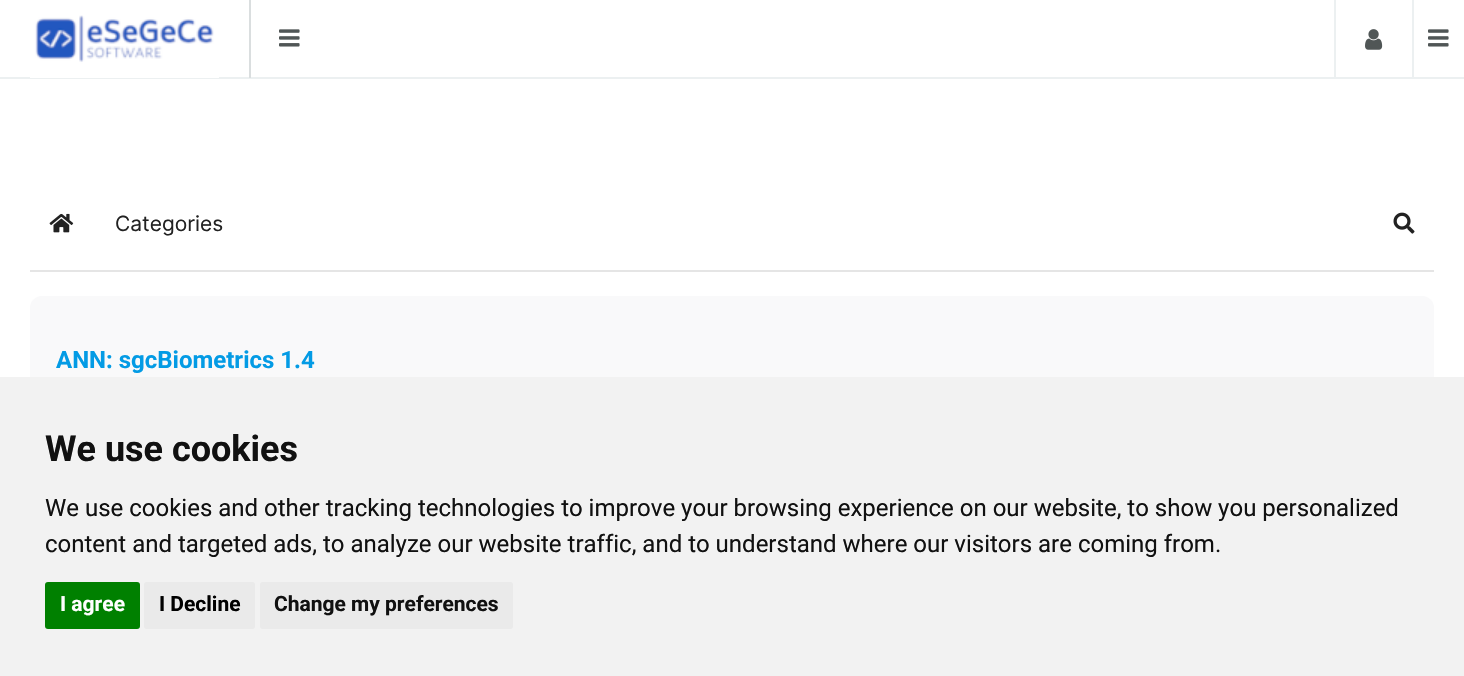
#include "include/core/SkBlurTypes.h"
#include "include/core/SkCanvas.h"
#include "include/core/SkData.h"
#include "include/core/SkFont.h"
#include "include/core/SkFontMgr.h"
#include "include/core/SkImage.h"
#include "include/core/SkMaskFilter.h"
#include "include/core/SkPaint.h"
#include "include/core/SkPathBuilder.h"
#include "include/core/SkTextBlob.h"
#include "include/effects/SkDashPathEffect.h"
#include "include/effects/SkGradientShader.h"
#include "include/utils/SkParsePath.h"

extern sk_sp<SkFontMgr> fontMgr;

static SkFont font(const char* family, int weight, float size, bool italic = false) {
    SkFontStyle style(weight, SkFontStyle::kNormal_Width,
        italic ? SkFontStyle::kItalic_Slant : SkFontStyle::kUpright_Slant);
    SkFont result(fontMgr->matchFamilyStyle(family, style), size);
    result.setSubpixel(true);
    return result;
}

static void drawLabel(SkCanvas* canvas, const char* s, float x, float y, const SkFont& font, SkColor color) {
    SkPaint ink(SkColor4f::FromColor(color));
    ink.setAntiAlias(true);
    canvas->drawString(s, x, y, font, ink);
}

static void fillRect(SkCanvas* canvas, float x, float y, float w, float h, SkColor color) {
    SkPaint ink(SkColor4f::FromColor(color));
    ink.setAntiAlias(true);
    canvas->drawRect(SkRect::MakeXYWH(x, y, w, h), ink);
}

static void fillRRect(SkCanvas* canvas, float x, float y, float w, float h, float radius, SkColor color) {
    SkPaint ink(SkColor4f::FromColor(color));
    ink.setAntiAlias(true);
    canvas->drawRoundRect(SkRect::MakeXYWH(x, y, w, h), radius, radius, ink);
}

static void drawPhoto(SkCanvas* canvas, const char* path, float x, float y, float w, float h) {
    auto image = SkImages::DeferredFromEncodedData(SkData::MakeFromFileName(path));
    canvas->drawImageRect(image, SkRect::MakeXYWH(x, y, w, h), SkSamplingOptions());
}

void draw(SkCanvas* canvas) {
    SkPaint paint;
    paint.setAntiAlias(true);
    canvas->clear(0xFFFFFFFF);
    fillRect(canvas, 0, 77, 1464, 2, 0xFFECF0F1);
    fillRect(canvas, 249, 0, 2, 78, 0xFFDADEDF);
    drawPhoto(canvas, "assets/img1.png", 30, 15, 189, 63);
    drawPhoto(canvas, "assets/img2.png", 279, 29, 21, 18);
    fillRect(canvas, 1334, 0, 2, 78, 0xFFECF0F1);
    drawPhoto(canvas, "assets/img3.png", 1365, 29, 18, 21);
    fillRect(canvas, 1412, 0, 2, 78, 0xFFECF0F1);
    drawPhoto(canvas, "assets/img2.png", 1428, 29, 21, 18);
    drawPhoto(canvas, "assets/img4.png", 49, 213, 25, 20);
    SkFont font1 = font("Inter", 400, 21);
    drawLabel(canvas, "Categories", 115, 231, font1, 0xFF222222);
    drawPhoto(canvas, "assets/img5.png", 1393, 212, 22, 22);
    fillRect(canvas, 30, 270, 1404, 2, 0xFFE5E5E5);
    fillRRect(canvas, 30, 296, 1404, 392, 12, 0xFFF9F9FA);
    SkFont font2 = font("Roboto", 700, 24);
    drawLabel(canvas, "ANN: sgcBiometrics 1.4", 56, 368, font2, 0xFF039BE5);
    fillRect(canvas, 0, 377, 1464, 299, 0xFFF2F2F2);
    SkFont font3 = font("Roboto", 700, 36);
    drawLabel(canvas, "We use cookies", 45, 461, font3, 0xFF111111);
    SkFont font4 = font("Roboto", 400, 24);
    drawLabel(canvas, "We use cookies and other tracking technologies to improve your browsing experience on our website, to show you personalized", 45, 516, font4, 0xFF111111);
    drawLabel(canvas, "content and targeted ads, to analyze our website traffic, and to understand where our visitors are coming from.", 45, 552, font4, 0xFF111111);
    fillRRect(canvas, 45, 582, 95, 47, 3, 0xFF008000);
    SkFont font5 = font("Roboto", 700, 21);
    drawLabel(canvas, "I agree", 60, 611, font5, 0xFFFFFFFF);
    fillRRect(canvas, 144, 582, 111, 47, 3, 0xFFEAEAEA);
    drawLabel(canvas, "I Decline", 159, 611, font5, 0xFF000000);
    fillRRect(canvas, 260, 582, 253, 47, 3, 0xFFEAEAEA);
    drawLabel(canvas, "Change my preferences", 274, 611, font5, 0xFF111111);
}
